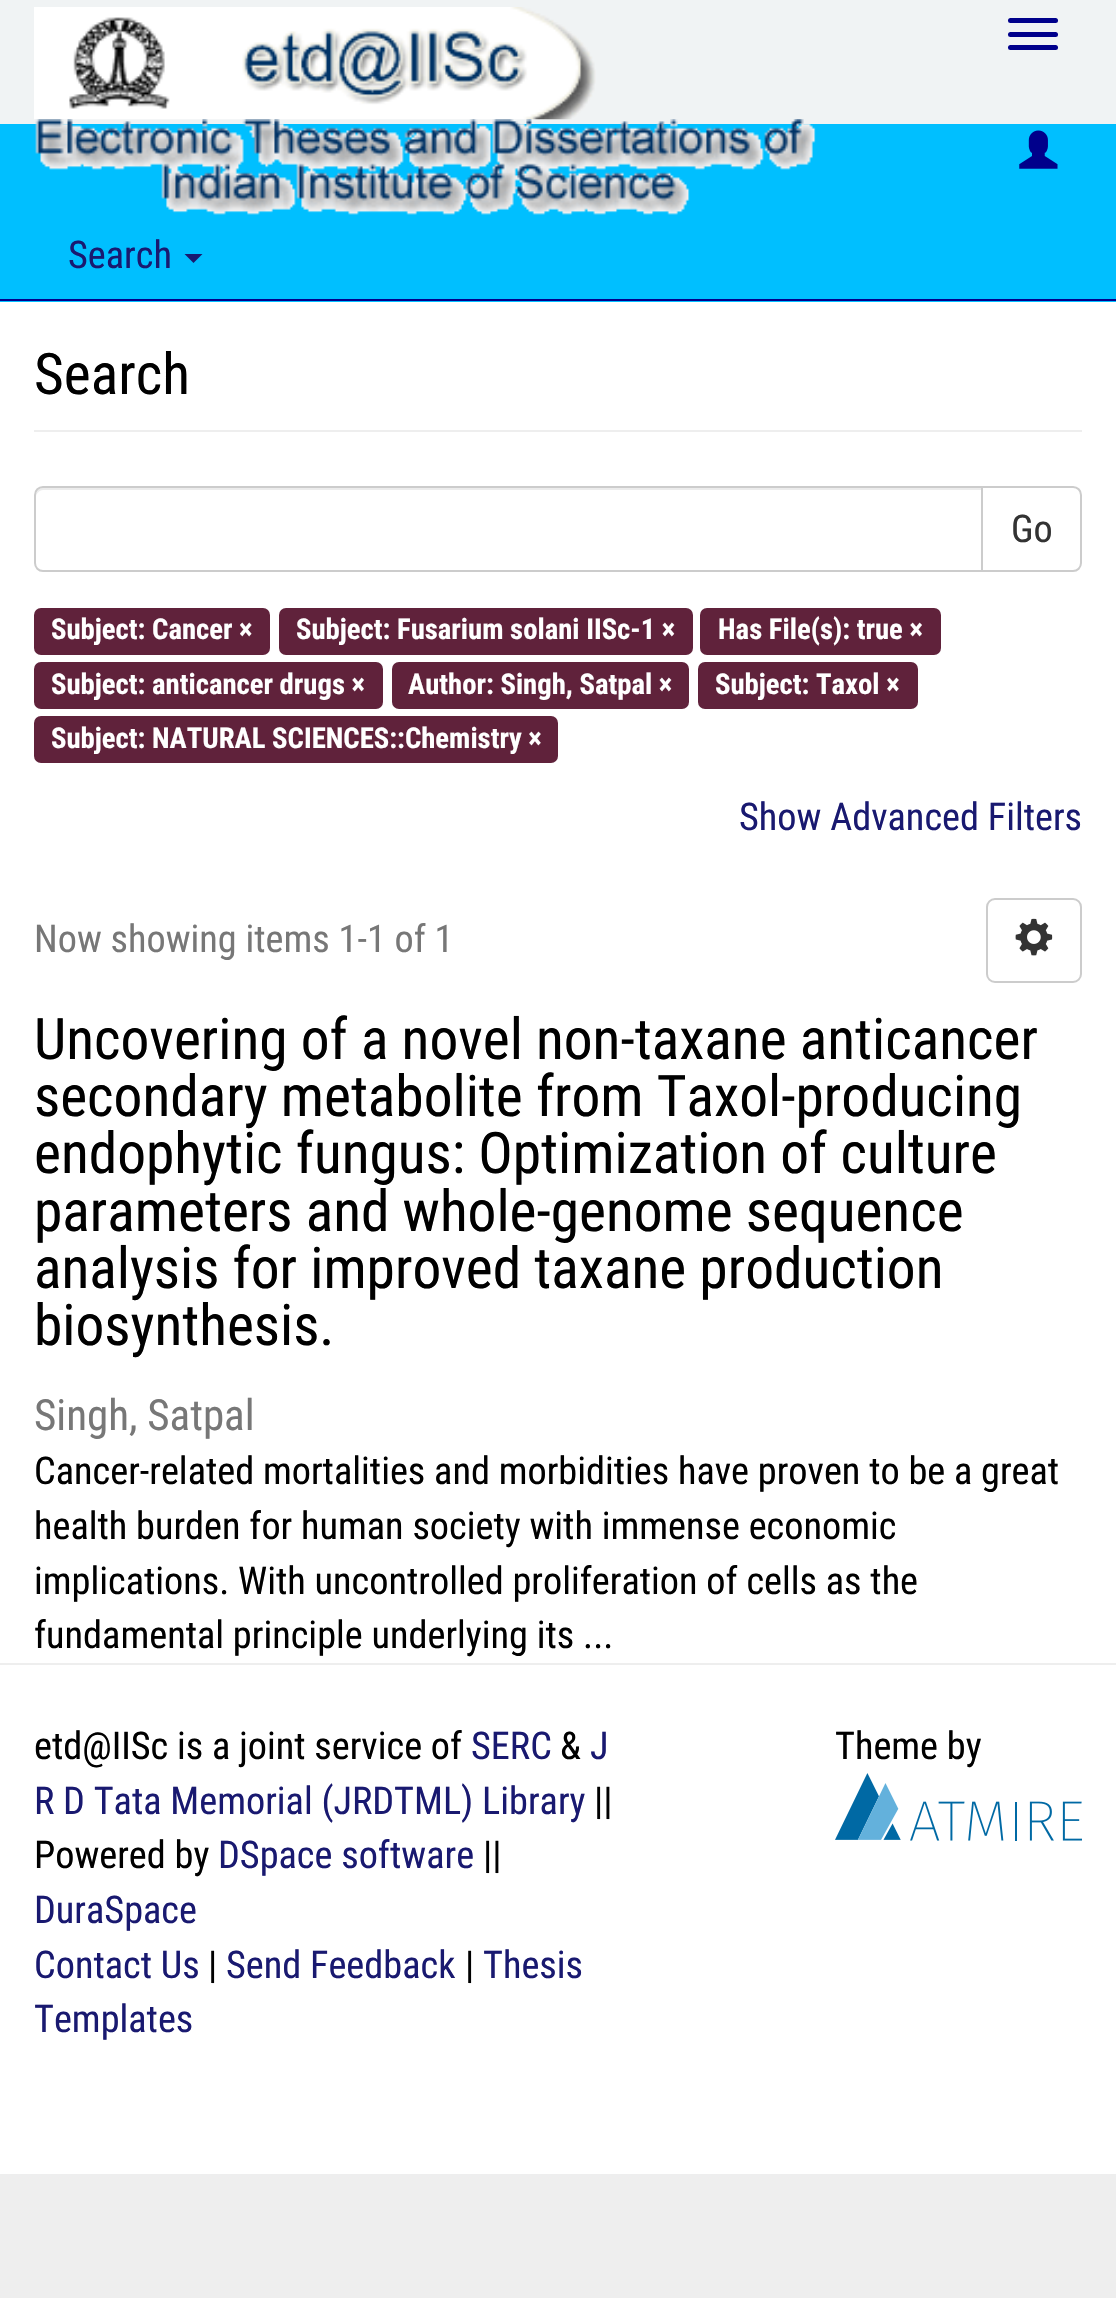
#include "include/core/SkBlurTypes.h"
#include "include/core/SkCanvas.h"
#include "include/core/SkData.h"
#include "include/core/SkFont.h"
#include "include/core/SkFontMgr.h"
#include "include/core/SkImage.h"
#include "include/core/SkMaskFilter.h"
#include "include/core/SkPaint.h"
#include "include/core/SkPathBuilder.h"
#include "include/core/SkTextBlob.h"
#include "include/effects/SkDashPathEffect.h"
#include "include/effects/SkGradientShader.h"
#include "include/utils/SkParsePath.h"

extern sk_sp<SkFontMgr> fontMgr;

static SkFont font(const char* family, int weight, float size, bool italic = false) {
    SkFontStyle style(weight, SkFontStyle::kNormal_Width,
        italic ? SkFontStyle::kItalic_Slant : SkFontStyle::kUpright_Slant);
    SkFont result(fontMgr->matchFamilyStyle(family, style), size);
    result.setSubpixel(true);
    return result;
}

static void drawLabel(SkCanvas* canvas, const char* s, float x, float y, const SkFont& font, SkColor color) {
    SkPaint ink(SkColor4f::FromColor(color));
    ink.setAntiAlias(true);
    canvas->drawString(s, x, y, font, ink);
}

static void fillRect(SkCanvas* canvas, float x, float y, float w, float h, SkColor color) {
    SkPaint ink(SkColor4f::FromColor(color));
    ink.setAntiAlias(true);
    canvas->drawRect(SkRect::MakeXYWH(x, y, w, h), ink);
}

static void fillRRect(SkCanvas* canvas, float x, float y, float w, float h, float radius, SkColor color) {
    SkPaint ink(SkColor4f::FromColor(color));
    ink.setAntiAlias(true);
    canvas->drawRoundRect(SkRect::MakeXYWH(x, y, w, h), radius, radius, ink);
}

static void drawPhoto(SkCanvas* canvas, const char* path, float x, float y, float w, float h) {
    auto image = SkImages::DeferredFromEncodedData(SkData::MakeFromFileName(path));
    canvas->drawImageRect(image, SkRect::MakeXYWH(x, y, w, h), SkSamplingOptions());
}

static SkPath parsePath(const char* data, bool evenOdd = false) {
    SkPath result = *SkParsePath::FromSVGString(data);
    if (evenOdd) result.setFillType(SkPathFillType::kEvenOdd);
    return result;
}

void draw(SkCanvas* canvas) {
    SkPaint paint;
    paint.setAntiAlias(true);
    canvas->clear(0xFFEEEEEE);
    fillRect(canvas, 0, 0, 1116, 124, 0xFFF0F3F4);
    drawPhoto(canvas, "assets/img1.png", 34, 7, 562, 113);
    fillRRect(canvas, 1008, 18, 50, 5, 2.5f, 0xFF00008B);
    fillRRect(canvas, 1008, 32, 50, 5, 2.5f, 0xFF00008B);
    fillRRect(canvas, 1008, 45, 50, 5, 2.5f, 0xFF00008B);
    fillRect(canvas, 0, 124, 1116, 178, 0xFF00BFFF);
    drawPhoto(canvas, "assets/img2.png", 35, 119, 781, 96);
    drawPhoto(canvas, "assets/img3.png", 1019, 130, 39, 39);
    fillRect(canvas, 0, 299, 1116, 2, 0xFF00008B);
    SkFont font1 = font("Roboto Condensed", 400, 38.25f);
    drawLabel(canvas, "Search", 68, 268, font1, 0xFF191970);
    paint.setColor(0xFF191970);
    canvas->drawPath(parsePath("M184.5 254H202.5L193.5 263Z"), paint);
    fillRect(canvas, 0, 302, 1116, 1872, 0xFFFFFFFF);
    fillRect(canvas, 34, 430, 1048, 2, 0xFFEEEEEE);
    SkFont font2 = font("Roboto Condensed", 400, 57.4f);
    drawLabel(canvas, "Search", 34, 394, font2, 0xFF000000);
    paint.setStroke(true);
    paint.setStrokeWidth(2);
    paint.setColor(0xFFCCCCCC);
    canvas->drawPath(parsePath("M982 487H1073C1077.5 487 1081 490.5 1081 495V563C1081 567.5 1077.5 571 1073 571H982Z"), paint);
    paint.setStroke(false);
    paint.setColor(0xFFFFFFFF);
    canvas->drawPath(parsePath("M43 486H983V572H43C38 572 34 568 34 563V495C34 490 38 486 43 486Z"), paint);
    paint.setColor(0xFFECECEC);
    canvas->drawPath(parsePath("M43 490H981V488H43C38 488 36 493 36 497C36 494 39 490 43 490Z"), paint);
    paint.setStroke(true);
    paint.setColor(0xFFCCCCCC);
    canvas->drawPath(parsePath("M43 487H982V571H43C38.5 571 35 567.5 35 563V495C35 490.5 38.5 487 43 487Z"), paint);
    drawLabel(canvas, "Go", 1011, 542, font1, 0xFF333333);
    fillRRect(canvas, 34, 608, 236, 47, 7, 0xFF60223B);
    SkFont font3 = font("Roboto Condensed", 700, 28.7f);
    drawLabel(canvas, "Subject: Cancer ×", 51, 639, font3, 0xFFFFFFFF);
    fillRRect(canvas, 279, 608, 414, 47, 7, 0xFF60223B);
    drawLabel(canvas, "Subject: Fusarium solani IISc-1 ×", 296, 639, font3, 0xFFFFFFFF);
    fillRRect(canvas, 700, 608, 241, 47, 7, 0xFF60223B);
    drawLabel(canvas, "Has File(s): true ×", 718, 639, font3, 0xFFFFFFFF);
    fillRRect(canvas, 34, 662, 349, 47, 7, 0xFF60223B);
    drawLabel(canvas, "Subject: anticancer drugs ×", 51, 694, font3, 0xFFFFFFFF);
    fillRRect(canvas, 392, 662, 297, 47, 7, 0xFF60223B);
    drawLabel(canvas, "Author: Singh, Satpal ×", 408, 694, font3, 0xFFFFFFFF);
    fillRRect(canvas, 698, 662, 220, 47, 7, 0xFF60223B);
    drawLabel(canvas, "Subject: Taxol ×", 715, 694, font3, 0xFFFFFFFF);
    fillRRect(canvas, 34, 716, 524, 47, 7, 0xFF60223B);
    drawLabel(canvas, "Subject: NATURAL SCIENCES::Chemistry ×", 51, 748, font3, 0xFFFFFFFF);
    drawLabel(canvas, "Show Advanced Filters", 739, 830, font1, 0xFF191970);
    drawLabel(canvas, "Now showing items 1-1 of 1", 34, 952, font1, 0xFF777777);
    canvas->drawRoundRect(SkRect::MakeXYWH(987, 899, 94, 83), 8, 8, paint);
    drawPhoto(canvas, "assets/img4.png", 1015, 918, 38, 38);
    drawLabel(canvas, "Uncovering of a novel non-taxane anticancer", 34, 1059, font2, 0xFF000000);
    drawLabel(canvas, "secondary metabolite from Taxol-producing", 34, 1116, font2, 0xFF000000);
    drawLabel(canvas, "endophytic fungus: Optimization of culture", 34, 1173, font2, 0xFF000000);
    drawLabel(canvas, "parameters and whole-genome sequence", 34, 1231, font2, 0xFF000000);
    drawLabel(canvas, "analysis for improved taxane production", 34, 1288, font2, 0xFF000000);
    drawLabel(canvas, "biosynthesis.", 34, 1345, font2, 0xFF000000);
    SkFont font4 = font("Roboto Condensed", 400, 43);
    drawLabel(canvas, "Singh, Satpal", 34, 1430, font4, 0xFF777777);
    drawLabel(canvas, "Cancer-related mortalities and morbidities have proven to be a great", 34, 1484, font1, 0xFF000000);
    drawLabel(canvas, "health burden for human society with immense economic", 34, 1539, font1, 0xFF000000);
    drawLabel(canvas, "implications. With uncontrolled proliferation of cells as the", 34, 1594, font1, 0xFF000000);
    drawLabel(canvas, "fundamental principle underlying its ...", 34, 1648, font1, 0xFF000000);
    fillRect(canvas, 0, 1663, 1116, 2, 0xFFEEEEEE);
    drawLabel(canvas, "etd@IISc is a joint service of", 34, 1759, font1, 0xFF000000);
    drawLabel(canvas, "SERC", 471, 1759, font1, 0xFF191970);
    drawLabel(canvas, "&", 560, 1759, font1, 0xFF000000);
    drawLabel(canvas, "J", 590, 1759, font1, 0xFF191970);
    drawLabel(canvas, "R D Tata Memorial (JRDTML) Library", 34, 1814, font1, 0xFF191970);
    drawLabel(canvas, "||", 594, 1814, font1, 0xFF000000);
    drawLabel(canvas, "Powered by", 34, 1868, font1, 0xFF000000);
    drawLabel(canvas, "DSpace software", 218, 1868, font1, 0xFF191970);
    drawLabel(canvas, "||", 483, 1868, font1, 0xFF000000);
    drawLabel(canvas, "DuraSpace", 34, 1923, font1, 0xFF191970);
    drawLabel(canvas, "Contact Us", 34, 1978, font1, 0xFF191970);
    drawLabel(canvas, "|", 208, 1978, font1, 0xFF000000);
    drawLabel(canvas, "Send Feedback", 226, 1978, font1, 0xFF191970);
    drawLabel(canvas, "|", 465, 1978, font1, 0xFF000000);
    drawLabel(canvas, "Thesis", 483, 1978, font1, 0xFF191970);
    drawLabel(canvas, "Templates", 34, 2032, font1, 0xFF191970);
    drawLabel(canvas, "Theme by", 835, 1759, font1, 0xFF000000);
    drawPhoto(canvas, "assets/img5.png", 835, 1773, 247, 68);
}
